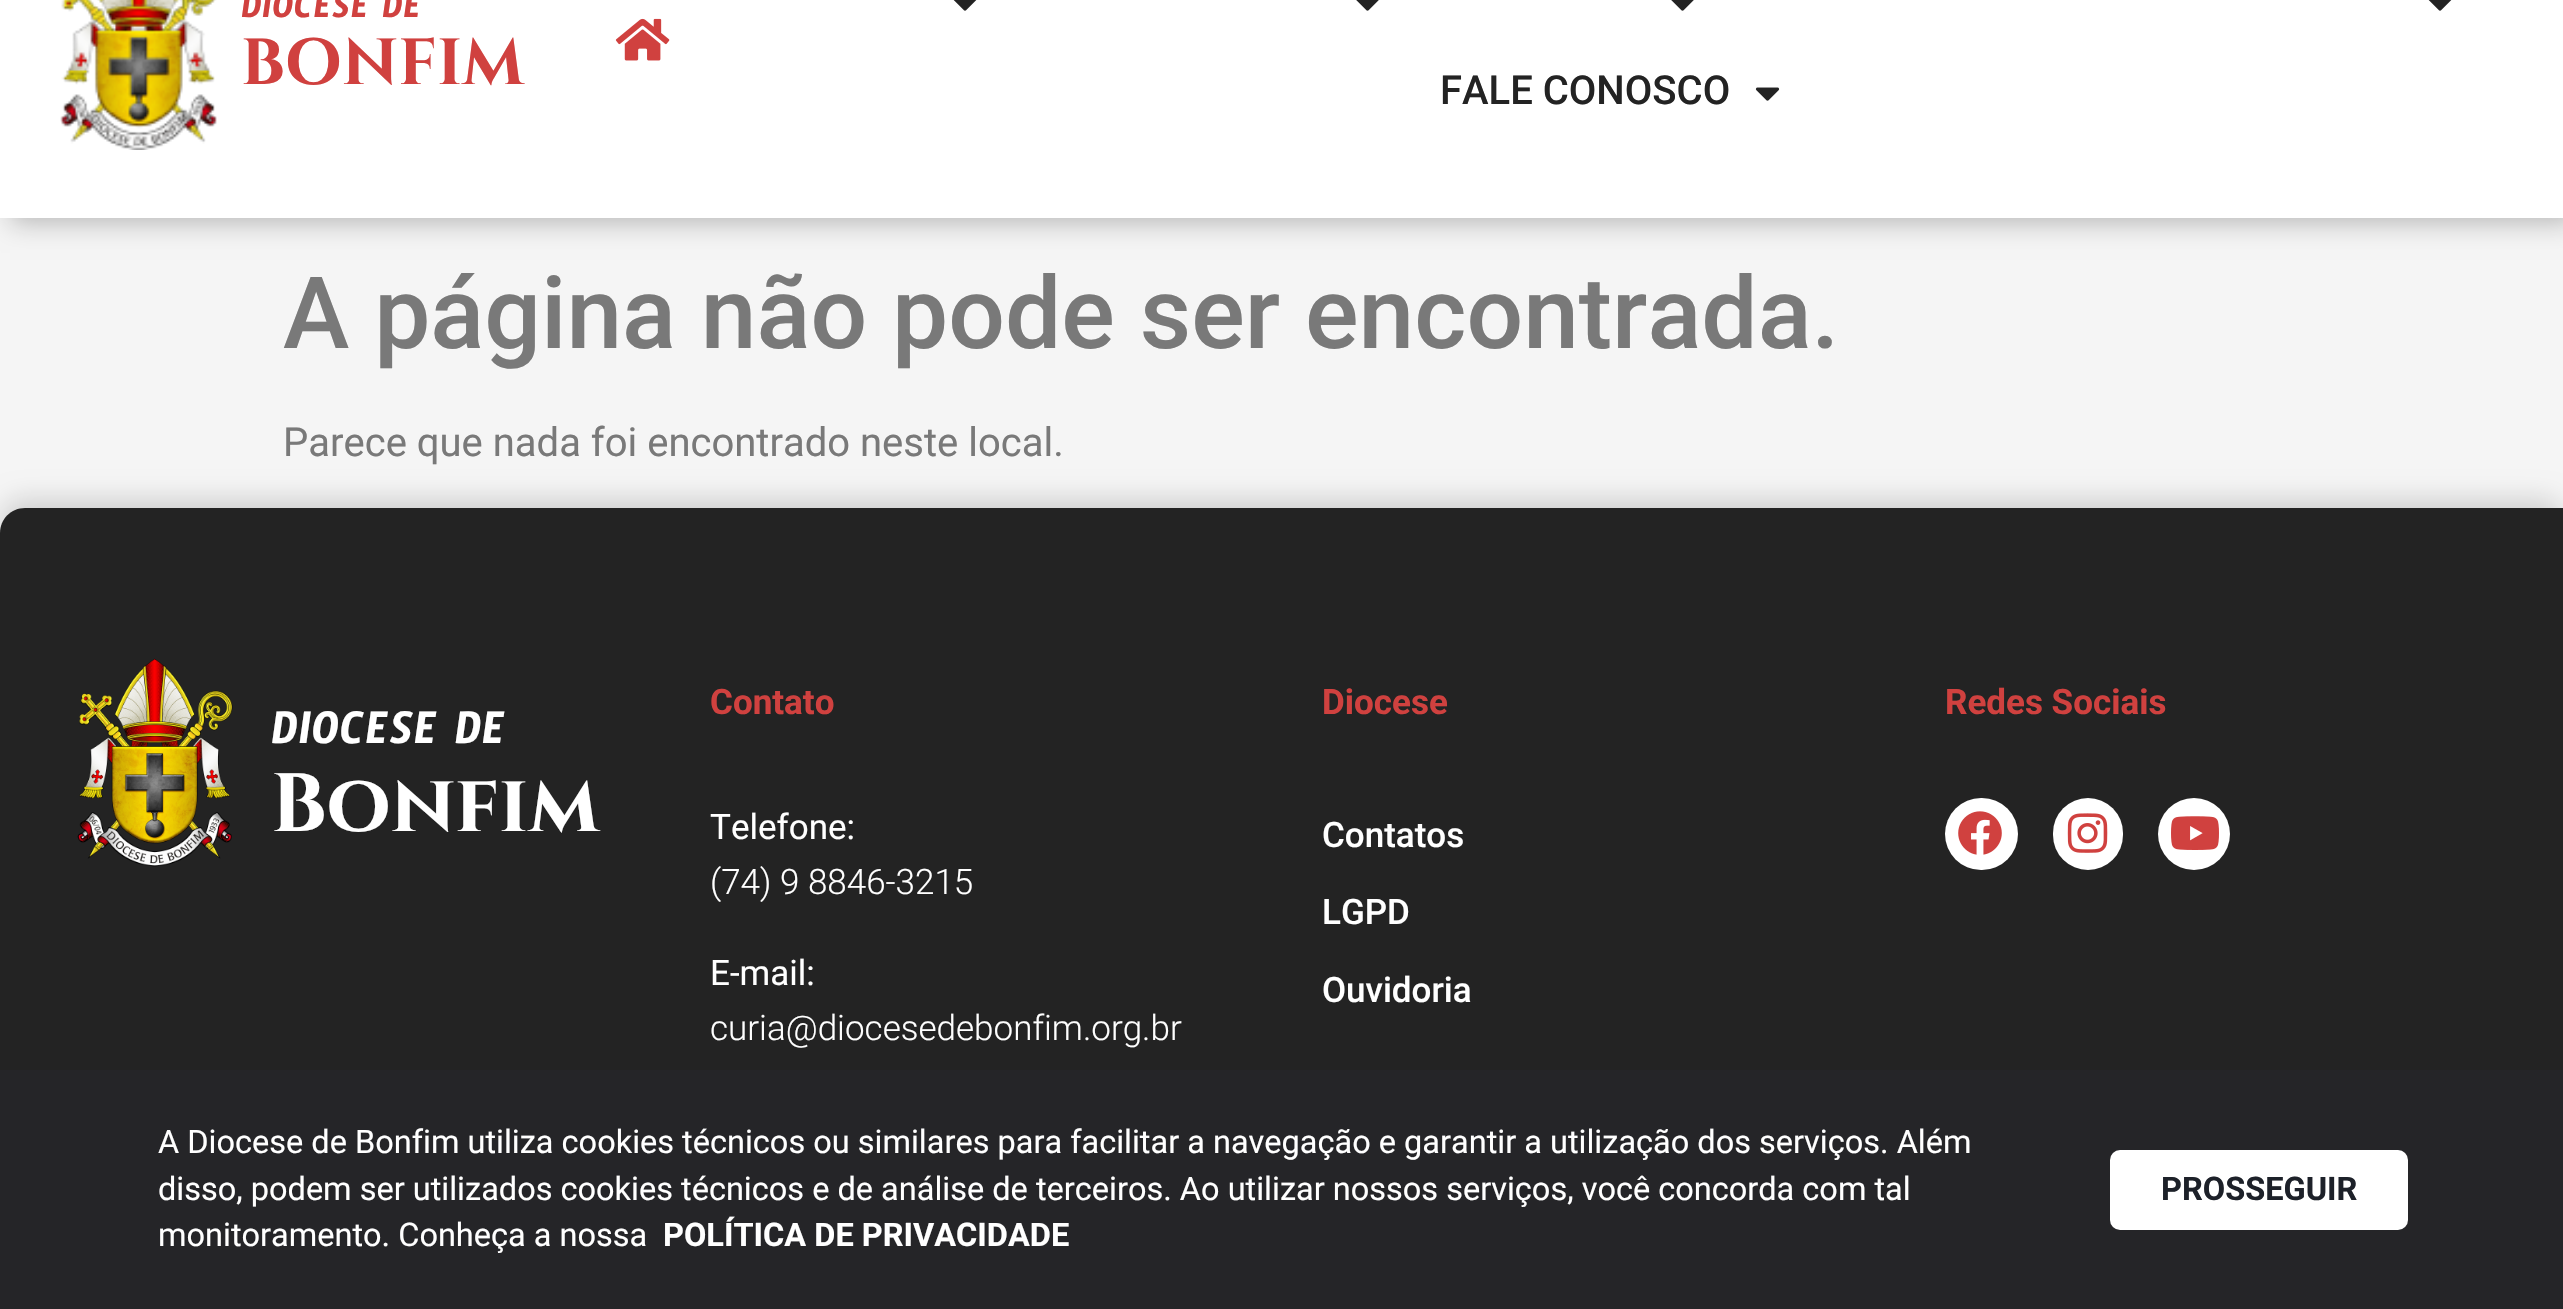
#include "include/core/SkBlurTypes.h"
#include "include/core/SkCanvas.h"
#include "include/core/SkData.h"
#include "include/core/SkFont.h"
#include "include/core/SkFontMgr.h"
#include "include/core/SkImage.h"
#include "include/core/SkMaskFilter.h"
#include "include/core/SkPaint.h"
#include "include/core/SkPathBuilder.h"
#include "include/core/SkTextBlob.h"
#include "include/effects/SkDashPathEffect.h"
#include "include/effects/SkGradientShader.h"
#include "include/utils/SkParsePath.h"

extern sk_sp<SkFontMgr> fontMgr;

static SkFont font(const char* family, int weight, float size, bool italic = false) {
    SkFontStyle style(weight, SkFontStyle::kNormal_Width,
        italic ? SkFontStyle::kItalic_Slant : SkFontStyle::kUpright_Slant);
    SkFont result(fontMgr->matchFamilyStyle(family, style), size);
    result.setSubpixel(true);
    return result;
}

static void drawLabel(SkCanvas* canvas, const char* s, float x, float y, const SkFont& font, SkColor color) {
    SkPaint ink(SkColor4f::FromColor(color));
    ink.setAntiAlias(true);
    canvas->drawString(s, x, y, font, ink);
}

static void fillRect(SkCanvas* canvas, float x, float y, float w, float h, SkColor color) {
    SkPaint ink(SkColor4f::FromColor(color));
    ink.setAntiAlias(true);
    canvas->drawRect(SkRect::MakeXYWH(x, y, w, h), ink);
}

static void fillRRect(SkCanvas* canvas, float x, float y, float w, float h, float radius, SkColor color) {
    SkPaint ink(SkColor4f::FromColor(color));
    ink.setAntiAlias(true);
    canvas->drawRoundRect(SkRect::MakeXYWH(x, y, w, h), radius, radius, ink);
}

static void drawPhoto(SkCanvas* canvas, const char* path, float x, float y, float w, float h) {
    auto image = SkImages::DeferredFromEncodedData(SkData::MakeFromFileName(path));
    canvas->drawImageRect(image, SkRect::MakeXYWH(x, y, w, h), SkSamplingOptions());
}

static SkPath parsePath(const char* data, bool evenOdd = false) {
    SkPath result = *SkParsePath::FromSVGString(data);
    if (evenOdd) result.setFillType(SkPathFillType::kEvenOdd);
    return result;
}

void draw(SkCanvas* canvas) {
    SkPaint paint;
    paint.setAntiAlias(true);
    canvas->clear(0xFFF5F5F5);
    paint.setColor(0x40000000);
    paint.setMaskFilter(SkMaskFilter::MakeBlur(kNormal_SkBlurStyle, 12.5f));
    canvas->drawRect(SkRect::MakeXYWH(10, -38, 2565, 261), paint);
    paint.setMaskFilter(nullptr);
    fillRect(canvas, 0, 0, 2563, 218, 0xFFFFFFFF);
    drawPhoto(canvas, "assets/img1.png", 60, 0, 157, 150);
    SkFont font1 = font("Timmana", 400, 40);
    drawLabel(canvas, "DIOCESE DE", 241, 17, font1, 0xFFD0413F);
    SkFont font2 = font("Cinzel", 700, 65);
    drawLabel(canvas, "BONFIM", 241, 84, font2, 0xFFD0413F);
    drawPhoto(canvas, "assets/img2.png", 615, 18, 55, 43);
    drawPhoto(canvas, "assets/img3.png", 953, 0, 24, 11);
    drawPhoto(canvas, "assets/img4.png", 1356, 0, 23, 11);
    drawPhoto(canvas, "assets/img4.png", 1671, 0, 23, 11);
    drawPhoto(canvas, "assets/img3.png", 2428, 0, 24, 11);
    SkFont font3 = font("Roboto", 500, 40);
    drawLabel(canvas, "FALE CONOSCO", 1440, 104, font3, 0xFF232323);
    drawPhoto(canvas, "assets/img5.png", 1755, 87, 25, 14);
    SkFont font4 = font("Roboto", 500, 100);
    drawLabel(canvas, "A página não pode ser encontrada.", 283, 348, font4, 0xFF797979);
    SkFont font5 = font("Roboto", 400, 40);
    drawLabel(canvas, "Parece que nada foi encontrado neste local.", 283, 456, font5, 0xFF797979);
    paint.setColor(0x24000000);
    paint.setMaskFilter(SkMaskFilter::MakeBlur(kNormal_SkBlurStyle, 12.5f));
    canvas->drawRoundRect(SkRect::MakeXYWH(0, 498, 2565, 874), 25, 25, paint);
    paint.setMaskFilter(nullptr);
    paint.setColor(0xFF232323);
    canvas->drawPath(parsePath("M25 508H2562.5C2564 508 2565 509 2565 510.5V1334H0V533C0 519 11 508 25 508Z"), paint);
    SkFont font6 = font("Roboto", 700, 35);
    drawLabel(canvas, "Redes Sociais", 1945, 714, font6, 0xFFD0413F);
    fillRRect(canvas, 1945, 798, 73, 72, 36, 0xFFFFFFFF);
    drawPhoto(canvas, "assets/img6.png", 1958, 811, 44, 44);
    fillRRect(canvas, 2053, 798, 70, 72, 35, 0xFFFFFFFF);
    drawPhoto(canvas, "assets/img7.png", 2067, 813, 41, 40);
    paint.setColor(0xFFFFFFFF);
    canvas->drawCircle(2194, 834, 36, paint);
    drawPhoto(canvas, "assets/img8.png", 2171, 816, 48, 34);
    drawLabel(canvas, "Diocese", 1322, 714, font6, 0xFFD0413F);
    SkFont font7 = font("Roboto", 500, 35);
    drawLabel(canvas, "Contatos", 1322, 847, font7, 0xFFFFFFFF);
    drawLabel(canvas, "LGPD", 1322, 924, font7, 0xFFFFFFFF);
    drawLabel(canvas, "Ouvidoria", 1322, 1002, font7, 0xFFFFFFFF);
    fillRect(canvas, 0, 1070, 2563, 239, 0xFF252528);
    SkFont font8 = font("Roboto", 400, 32.5f);
    drawLabel(canvas, "A Diocese de Bonfim utiliza cookies técnicos ou similares para facilitar a navegação e garantir a utilização dos serviços. Além", 158, 1153, font8, 0xFFFFFFFF);
    drawLabel(canvas, "disso, podem ser utilizados cookies técnicos e de análise de terceiros. Ao utilizar nossos serviços, você concorda com tal", 158, 1200, font8, 0xFFFFFFFF);
    drawLabel(canvas, "monitoramento. Conheça a nossa", 158, 1246, font8, 0xFFFFFFFF);
    SkFont font9 = font("Roboto", 700, 32.5f);
    drawLabel(canvas, "POLÍTICA DE PRIVACIDADE", 663, 1246, font9, 0xFFFFFFFF);
    fillRRect(canvas, 2110, 1150, 298, 80, 10, 0xFFFFFFFF);
    drawLabel(canvas, "PROSSEGUIR", 2161, 1200, font9, 0xFF1D2129);
    drawPhoto(canvas, "assets/img9.png", 77, 658, 156, 209);
    SkFont font10 = font("Timmana", 400, 52);
    drawLabel(canvas, "DIOCESE DE", 271, 743, font10, 0xFFFFFFFF);
    SkFont font11 = font("Cinzel", 700, 82.5f);
    drawLabel(canvas, "Bonfim", 271, 831, font11, 0xFFFFFFFF);
    drawLabel(canvas, "Contato", 710, 714, font6, 0xFFD0413F);
    SkFont font12 = font("Roboto", 400, 35);
    drawLabel(canvas, "Telefone:", 710, 839, font12, 0xFFFFFFFF);
    SkFont font13 = font("Roboto", 300, 35);
    drawLabel(canvas, "(74) 9 8846-3215", 710, 894, font13, 0xFFFFFFFF);
    drawLabel(canvas, "E-mail:", 710, 985, font12, 0xFFFFFFFF);
    drawLabel(canvas, "curia@diocesedebonfim.org.br", 710, 1040, font13, 0xFFFFFFFF);
}
